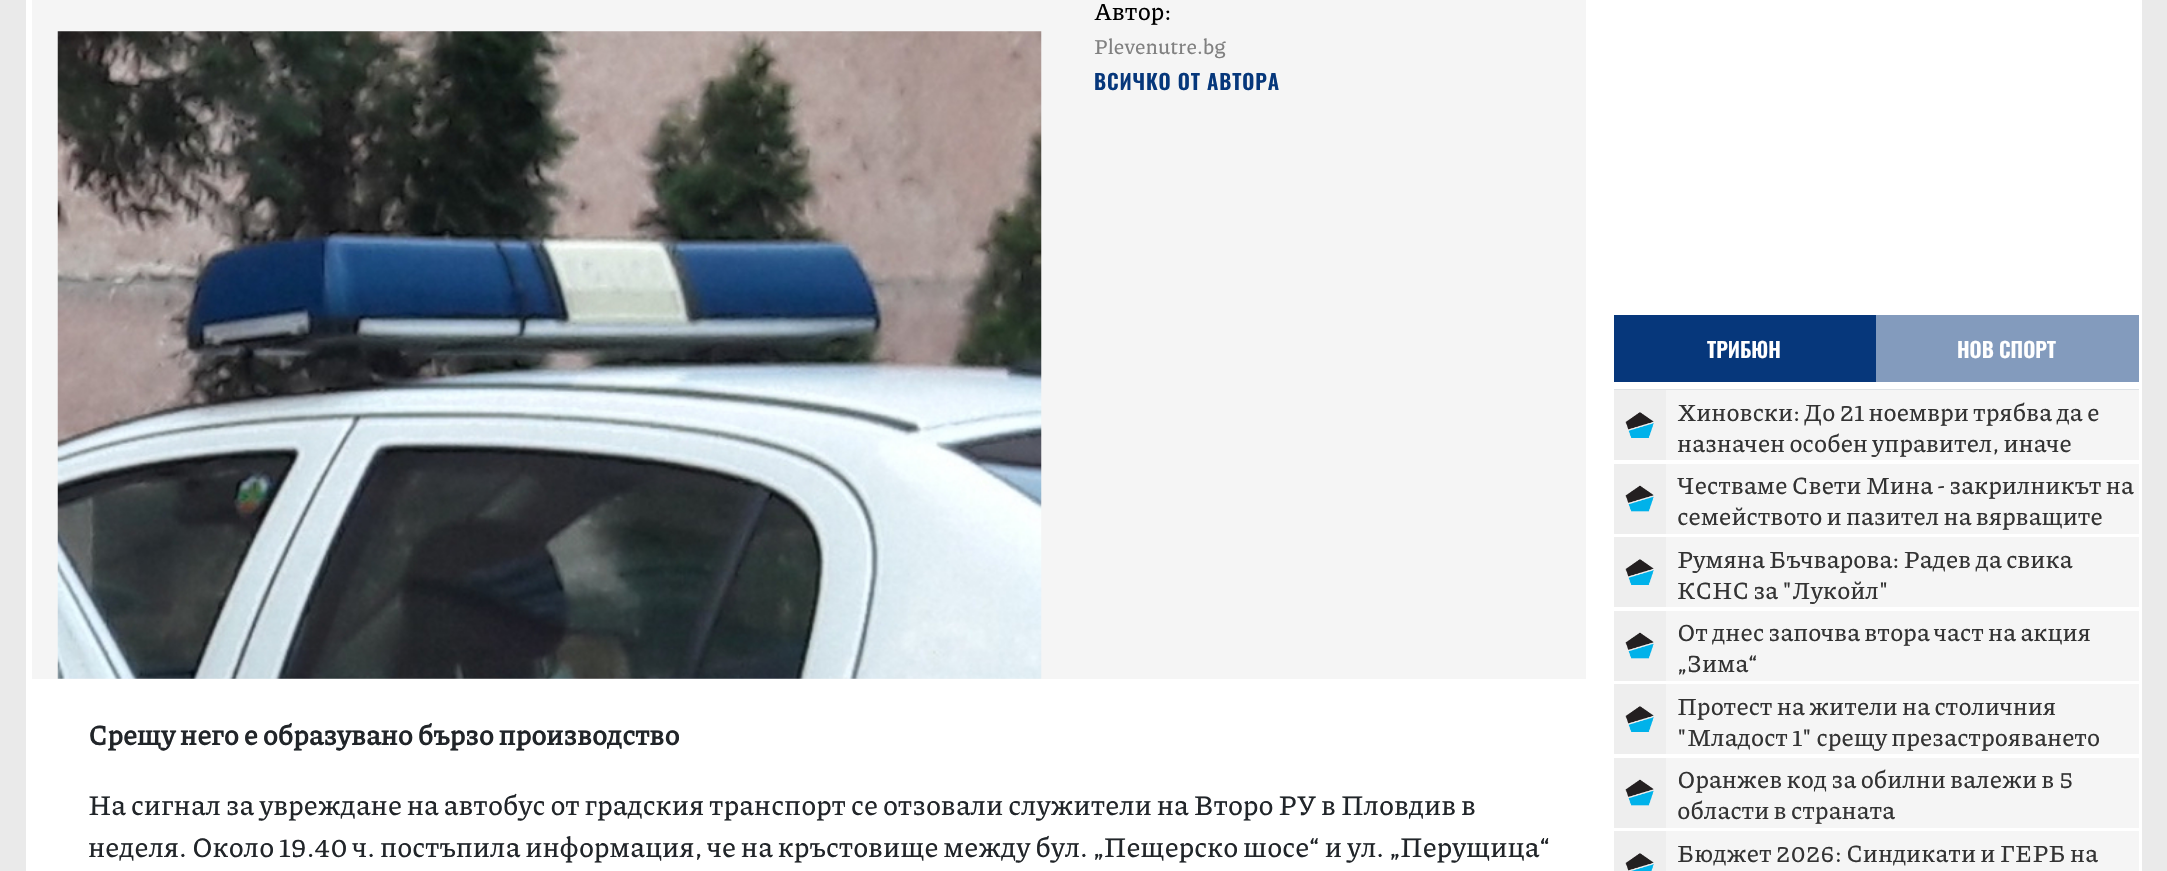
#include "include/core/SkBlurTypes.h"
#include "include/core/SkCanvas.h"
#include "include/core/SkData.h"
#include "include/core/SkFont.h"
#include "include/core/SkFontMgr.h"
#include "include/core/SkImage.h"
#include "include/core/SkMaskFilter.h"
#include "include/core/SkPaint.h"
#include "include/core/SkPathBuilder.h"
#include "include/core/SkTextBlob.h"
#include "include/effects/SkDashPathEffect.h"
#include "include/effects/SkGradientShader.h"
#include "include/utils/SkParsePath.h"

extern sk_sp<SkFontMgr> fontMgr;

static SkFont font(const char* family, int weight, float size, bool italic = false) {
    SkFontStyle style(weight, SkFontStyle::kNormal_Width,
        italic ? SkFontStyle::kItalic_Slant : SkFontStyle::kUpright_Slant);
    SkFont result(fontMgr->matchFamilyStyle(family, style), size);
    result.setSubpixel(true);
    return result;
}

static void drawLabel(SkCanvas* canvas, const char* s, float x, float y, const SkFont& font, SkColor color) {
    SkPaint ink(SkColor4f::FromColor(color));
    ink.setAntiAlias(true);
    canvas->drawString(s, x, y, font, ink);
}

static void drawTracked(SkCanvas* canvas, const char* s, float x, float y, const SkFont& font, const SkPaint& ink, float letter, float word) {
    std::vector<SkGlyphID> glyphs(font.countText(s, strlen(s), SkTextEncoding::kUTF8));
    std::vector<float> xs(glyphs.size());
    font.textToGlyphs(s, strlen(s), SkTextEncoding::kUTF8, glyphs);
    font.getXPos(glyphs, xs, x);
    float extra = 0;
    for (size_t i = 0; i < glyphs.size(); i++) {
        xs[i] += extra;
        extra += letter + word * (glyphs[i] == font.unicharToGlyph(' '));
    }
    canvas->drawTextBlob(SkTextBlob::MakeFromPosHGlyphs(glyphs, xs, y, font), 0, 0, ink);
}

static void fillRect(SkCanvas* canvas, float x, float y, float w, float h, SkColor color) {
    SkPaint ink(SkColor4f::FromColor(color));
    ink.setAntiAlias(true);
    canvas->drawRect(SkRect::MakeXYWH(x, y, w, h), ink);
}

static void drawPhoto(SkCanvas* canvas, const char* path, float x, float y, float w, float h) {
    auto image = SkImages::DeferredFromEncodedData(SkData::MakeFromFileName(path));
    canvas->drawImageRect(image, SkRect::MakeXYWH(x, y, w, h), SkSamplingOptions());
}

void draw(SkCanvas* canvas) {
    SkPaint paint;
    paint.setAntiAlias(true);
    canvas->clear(0xFFEAEAEA);
    fillRect(canvas, 26, 0, 2116, 871, 0xFFFFFFFF);
    fillRect(canvas, 32, 0, 1554, 679, 0xFFF5F5F5);
    drawPhoto(canvas, "assets/img1.png", 57, 31, 985, 648);
    SkFont font1 = font("Piazzolla", 100, 24.5f);
    drawLabel(canvas, "Автор:", 1094, 20, font1, 0xFF000000);
    SkFont font2 = font("Piazzolla", 100, 21);
    drawLabel(canvas, "Plevenutre.bg", 1094, 54, font2, 0xFF808080);
    SkFont font3 = font("Oswald", 600, 21);
    paint.setColor(0xFF06377B);
    drawTracked(canvas, "ВСИЧКО ОТ АВТОРА", 1094, 90, font3, paint, 0.9f, 0);
    SkFont font4 = font("Piazzolla", 700, 28);
    drawLabel(canvas, "Срещу него е образувано бързо производство", 88, 745, font4, 0xFF212529);
    SkFont font5 = font("Piazzolla", 100, 28);
    drawLabel(canvas, "На сигнал за увреждане на автобус от градския транспорт се отзовали служители на Второ РУ в Пловдив в", 88, 815, font5, 0xFF212529);
    drawLabel(canvas, "неделя. Около 19.40 ч. постъпила информация, че на кръстовище между бул. „Пещерско шосе“ и ул. „Перущица“", 88, 857, font5, 0xFF212529);
    fillRect(canvas, 1614, 389, 525, 1, 0xFFDEE2E6);
    fillRect(canvas, 1614, 315, 262, 67, 0xFF06377B);
    drawLabel(canvas, "ТРИБЮН", 1707, 358, font3, 0xFFFFFFFF);
    fillRect(canvas, 1876, 315, 263, 67, 0xFF839BBD);
    drawLabel(canvas, "НОВ СПОРТ", 1957, 358, font3, 0xFFFFFFFF);
    fillRect(canvas, 1614, 390, 52, 70, 0xFFEEEEEE);
    drawPhoto(canvas, "assets/img2.png", 1625, 412, 29, 26);
    fillRect(canvas, 1666, 390, 473, 70, 0xFFF5F5F5);
    drawLabel(canvas, "Хиновски: До 21 ноември трябва да е", 1677, 421, font1, 0xFF333333);
    drawLabel(canvas, "назначен особен управител, иначе", 1677, 452, font1, 0xFF333333);
    fillRect(canvas, 1614, 464, 52, 70, 0xFFEEEEEE);
    drawPhoto(canvas, "assets/img3.png", 1625, 485, 29, 27);
    fillRect(canvas, 1666, 464, 473, 70, 0xFFF5F5F5);
    drawLabel(canvas, "Честваме Свети Мина - закрилникът на", 1677, 494, font1, 0xFF333333);
    drawLabel(canvas, "семейството и пазител на вярващите", 1677, 525, font1, 0xFF333333);
    fillRect(canvas, 1614, 537, 52, 70, 0xFFEEEEEE);
    drawPhoto(canvas, "assets/img2.png", 1625, 559, 29, 26);
    fillRect(canvas, 1666, 537, 473, 70, 0xFFF5F5F5);
    drawLabel(canvas, "Румяна Бъчварова: Радев да свика", 1677, 568, font1, 0xFF333333);
    drawLabel(canvas, "КСНС за \"Лукойл\"", 1677, 599, font1, 0xFF333333);
    fillRect(canvas, 1614, 611, 52, 70, 0xFFEEEEEE);
    drawPhoto(canvas, "assets/img3.png", 1625, 632, 29, 27);
    fillRect(canvas, 1666, 611, 473, 70, 0xFFF5F5F5);
    drawLabel(canvas, "От днес започва втора част на акция", 1677, 641, font1, 0xFF333333);
    drawLabel(canvas, "„Зима“", 1677, 672, font1, 0xFF333333);
    fillRect(canvas, 1614, 684, 52, 70, 0xFFEEEEEE);
    drawPhoto(canvas, "assets/img2.png", 1625, 706, 29, 26);
    fillRect(canvas, 1666, 684, 473, 70, 0xFFF5F5F5);
    drawLabel(canvas, "Протест на жители на столичния", 1677, 715, font1, 0xFF333333);
    drawLabel(canvas, "\"Младост 1\" срещу презастрояването", 1677, 746, font1, 0xFF333333);
    fillRect(canvas, 1614, 758, 52, 70, 0xFFEEEEEE);
    drawPhoto(canvas, "assets/img3.png", 1625, 779, 29, 27);
    fillRect(canvas, 1666, 758, 473, 70, 0xFFF5F5F5);
    drawLabel(canvas, "Оранжев код за обилни валежи в 5", 1677, 788, font1, 0xFF333333);
    drawLabel(canvas, "области в страната", 1677, 819, font1, 0xFF333333);
    fillRect(canvas, 1614, 831, 52, 40, 0xFFEEEEEE);
    drawPhoto(canvas, "assets/img4.png", 1625, 853, 29, 18);
    fillRect(canvas, 1666, 831, 473, 40, 0xFFF5F5F5);
    drawLabel(canvas, "Бюджет 2026: Синдикати и ГЕРБ на", 1677, 862, font1, 0xFF333333);
}
